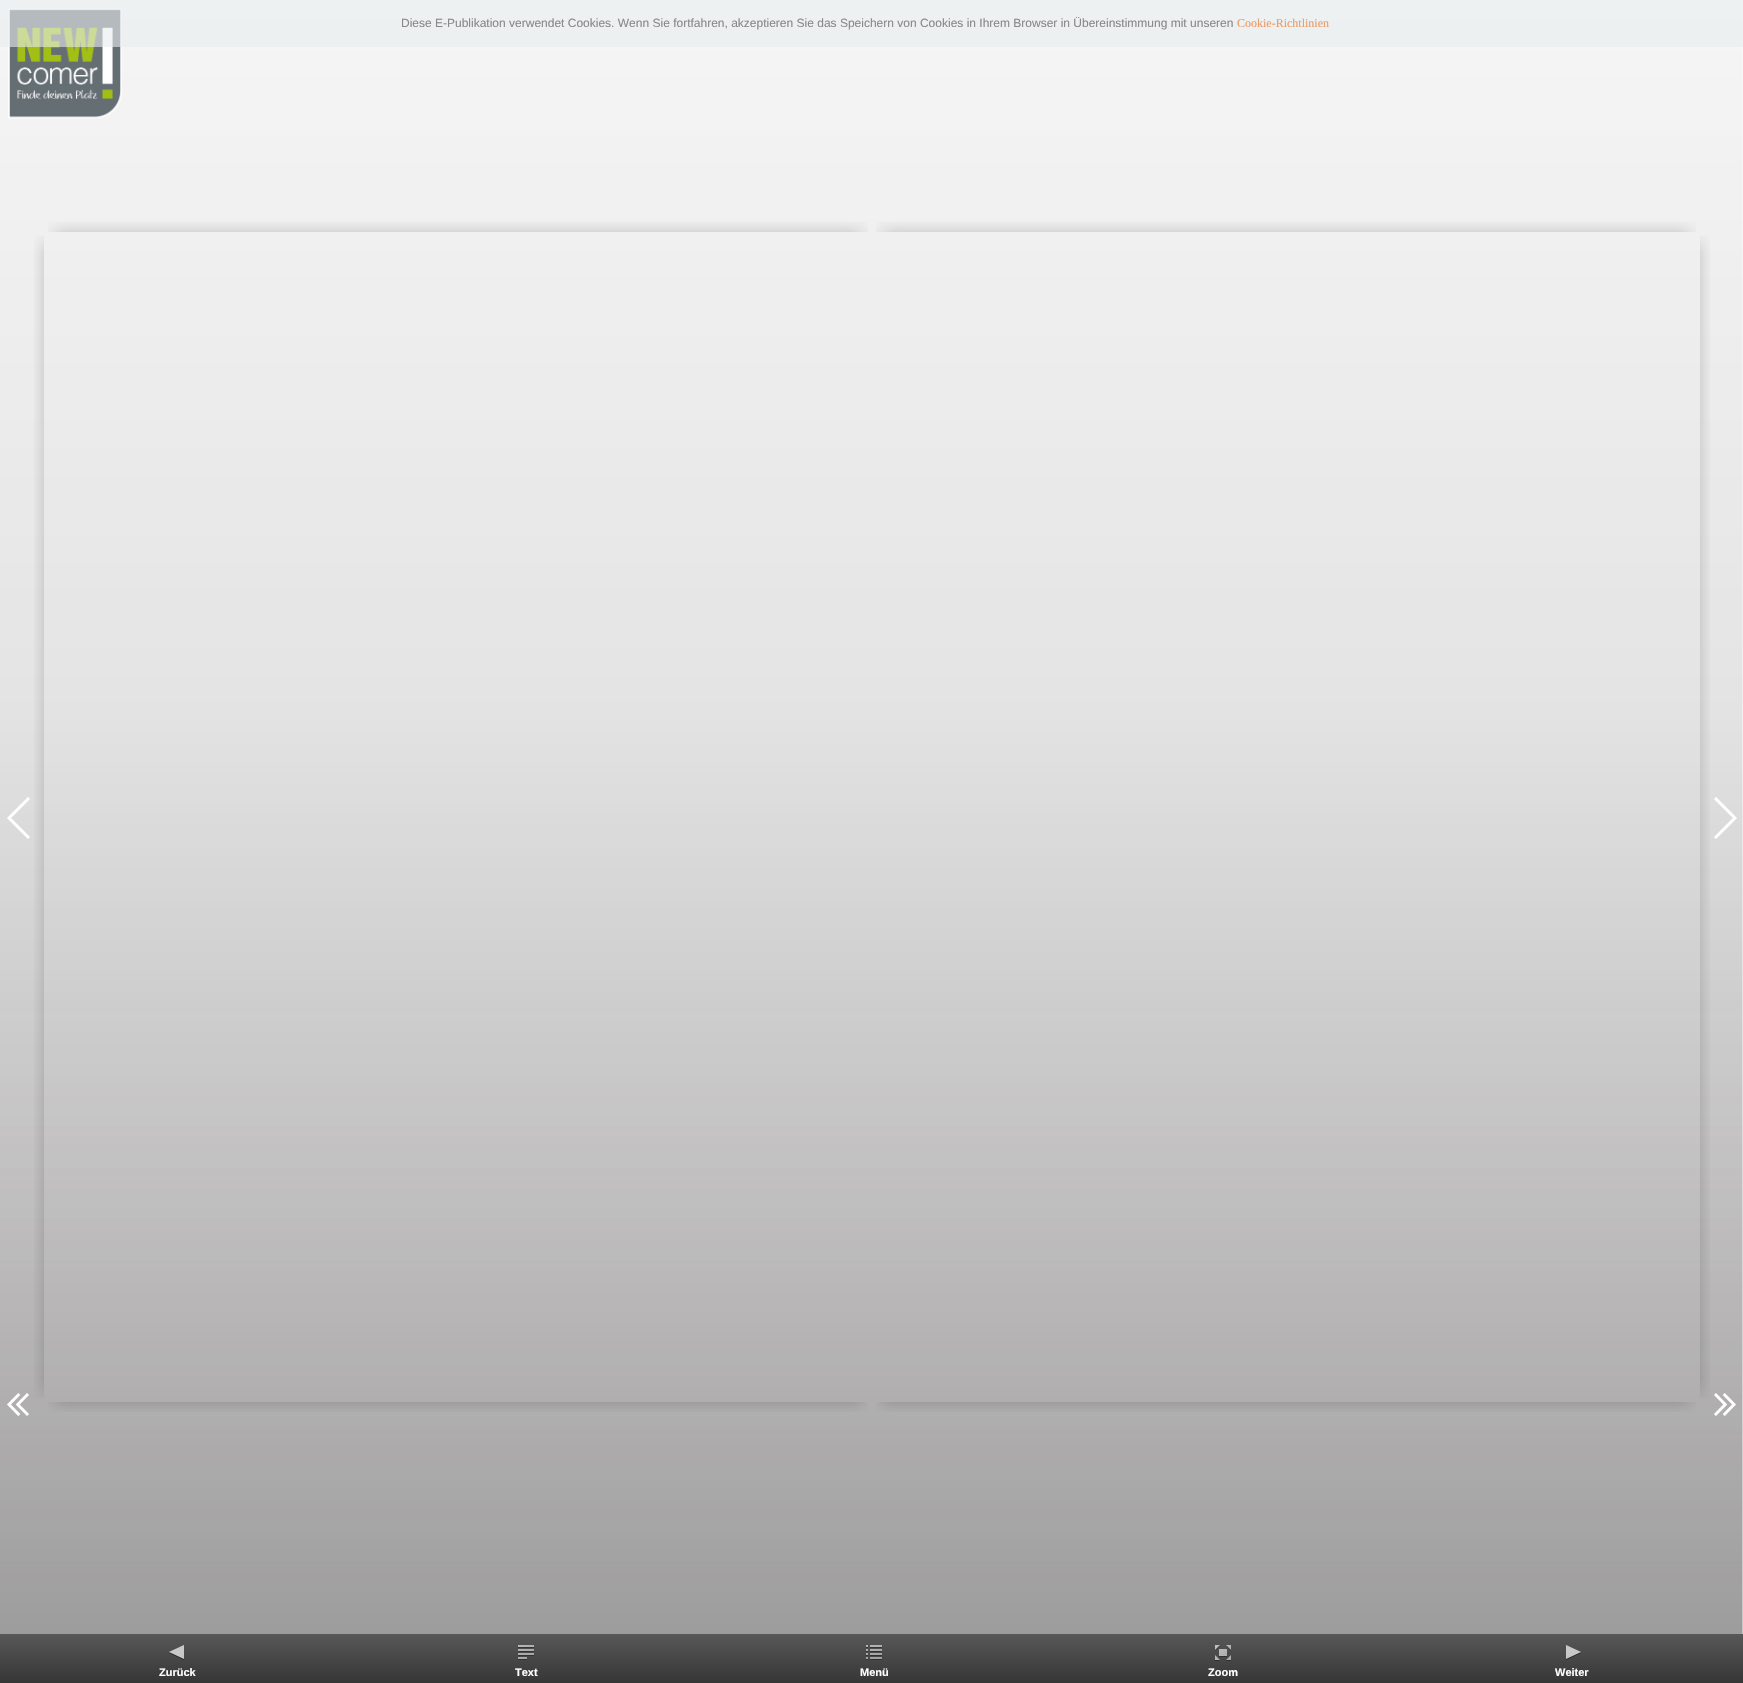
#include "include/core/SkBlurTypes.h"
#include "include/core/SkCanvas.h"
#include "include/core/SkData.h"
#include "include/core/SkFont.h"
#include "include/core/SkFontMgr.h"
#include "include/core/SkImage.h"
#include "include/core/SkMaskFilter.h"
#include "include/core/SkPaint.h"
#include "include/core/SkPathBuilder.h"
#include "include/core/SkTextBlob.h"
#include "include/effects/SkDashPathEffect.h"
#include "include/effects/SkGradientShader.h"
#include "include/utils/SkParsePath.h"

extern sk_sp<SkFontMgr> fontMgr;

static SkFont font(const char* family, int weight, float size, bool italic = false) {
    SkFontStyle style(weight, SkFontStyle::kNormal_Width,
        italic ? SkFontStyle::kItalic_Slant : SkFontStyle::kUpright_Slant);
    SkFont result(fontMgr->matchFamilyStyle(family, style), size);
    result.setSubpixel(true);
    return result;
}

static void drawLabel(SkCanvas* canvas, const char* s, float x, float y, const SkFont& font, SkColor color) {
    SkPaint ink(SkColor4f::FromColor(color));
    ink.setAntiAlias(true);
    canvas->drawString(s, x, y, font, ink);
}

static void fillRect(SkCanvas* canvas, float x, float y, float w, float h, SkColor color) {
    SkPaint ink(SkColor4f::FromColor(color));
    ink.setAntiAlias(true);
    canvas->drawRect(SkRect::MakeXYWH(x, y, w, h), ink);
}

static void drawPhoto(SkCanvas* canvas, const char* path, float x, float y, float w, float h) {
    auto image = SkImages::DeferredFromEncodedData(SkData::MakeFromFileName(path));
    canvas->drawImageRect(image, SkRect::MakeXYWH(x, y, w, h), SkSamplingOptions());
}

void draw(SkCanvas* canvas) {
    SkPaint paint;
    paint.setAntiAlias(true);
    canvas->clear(0xFFFFFFFF);
    drawPhoto(canvas, "assets/img5.png", 0, 0, 1743, 1634);
    drawPhoto(canvas, "assets/img6.png", 8, 8, 114, 111);
    fillRect(canvas, 0, 0, 1743, 47, 0x99E8ECEF);
    SkFont font1 = font("Liberation Sans", 400, 12);
    drawLabel(canvas, "Diese E-Publikation verwendet Cookies. Wenn Sie fortfahren, akzeptieren Sie das Speichern von Cookies in Ihrem Browser in Übereinstimmung mit unseren", 401, 27, font1, 0xFF888888);
    SkFont font2 = font("Liberation Serif", 400, 12);
    drawLabel(canvas, "Cookie-Richtlinien", 1237, 27, font2, 0xFFEB9A64);
    canvas->save();
    canvas->clipRect(SkRect::MakeXYWH(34, 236, 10, 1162));
    paint.setColor(0x33000000);
    paint.setMaskFilter(SkMaskFilter::MakeBlur(kNormal_SkBlurStyle, 7.5f));
    canvas->drawRect(SkRect::MakeXYWH(44, 242, 808, 1150), paint);
    paint.setMaskFilter(nullptr);
    canvas->restore();
    drawPhoto(canvas, "assets/img1.png", 7, 797, 23, 42);
    canvas->save();
    canvas->clipRect(SkRect::MakeXYWH(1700, 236, 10, 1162));
    paint.setMaskFilter(SkMaskFilter::MakeBlur(kNormal_SkBlurStyle, 7.5f));
    canvas->drawRect(SkRect::MakeXYWH(892, 242, 808, 1150), paint);
    paint.setMaskFilter(nullptr);
    canvas->restore();
    drawPhoto(canvas, "assets/img2.png", 1714, 797, 23, 42);
    drawPhoto(canvas, "assets/img3.png", 7, 1393, 22, 23);
    drawPhoto(canvas, "assets/img4.png", 1714, 1393, 22, 23);
    canvas->save();
    canvas->clipRect(SkRect::MakeXYWH(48, 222, 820, 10));
    paint.setMaskFilter(SkMaskFilter::MakeBlur(kNormal_SkBlurStyle, 7.5f));
    canvas->drawRect(SkRect::MakeXYWH(54, 232, 808, 1150), paint);
    paint.setMaskFilter(nullptr);
    canvas->restore();
    canvas->save();
    canvas->clipRect(SkRect::MakeXYWH(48, 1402, 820, 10));
    paint.setMaskFilter(SkMaskFilter::MakeBlur(kNormal_SkBlurStyle, 7.5f));
    canvas->drawRect(SkRect::MakeXYWH(54, 252, 808, 1150), paint);
    paint.setMaskFilter(nullptr);
    canvas->restore();
    canvas->save();
    canvas->clipRect(SkRect::MakeXYWH(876, 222, 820, 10));
    paint.setMaskFilter(SkMaskFilter::MakeBlur(kNormal_SkBlurStyle, 7.5f));
    canvas->drawRect(SkRect::MakeXYWH(882, 232, 808, 1150), paint);
    paint.setMaskFilter(nullptr);
    canvas->restore();
    canvas->save();
    canvas->clipRect(SkRect::MakeXYWH(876, 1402, 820, 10));
    paint.setMaskFilter(SkMaskFilter::MakeBlur(kNormal_SkBlurStyle, 7.5f));
    canvas->drawRect(SkRect::MakeXYWH(882, 252, 808, 1150), paint);
    paint.setMaskFilter(nullptr);
    canvas->restore();
    {
        const SkColor colors[] = {0xFF585858, 0xFF363636};
        const float stops[] = {0, 1};
        const SkPoint ends[] = {{872, 1634}, {872, 1683}};
        paint.setShader(SkGradientShader::MakeLinear(ends, colors, stops, 2, SkTileMode::kClamp));
        paint.setAlpha(255);
    }
    canvas->drawRect(SkRect::MakeXYWH(0, 1634, 1743, 49), paint);
    drawPhoto(canvas, "assets/img7.png", 169, 1645, 15, 15);
    SkFont font3 = font("Liberation Sans", 700, 11);
    drawLabel(canvas, "Zurück", 159, 1676, font3, 0xFFFFFFFF);
    drawPhoto(canvas, "assets/img8.png", 518, 1645, 16, 15);
    drawLabel(canvas, "Text", 515, 1676, font3, 0xFFFFFFFF);
    drawPhoto(canvas, "assets/img9.png", 866, 1645, 16, 15);
    drawLabel(canvas, "Menü", 860, 1676, font3, 0xFFFFFFFF);
    drawPhoto(canvas, "assets/img10.png", 1215, 1645, 16, 16);
    drawLabel(canvas, "Zoom", 1208, 1676, font3, 0xFFFFFFFF);
    drawPhoto(canvas, "assets/img11.png", 1566, 1645, 15, 15);
    drawLabel(canvas, "Weiter", 1555, 1676, font3, 0xFFFFFFFF);
}
